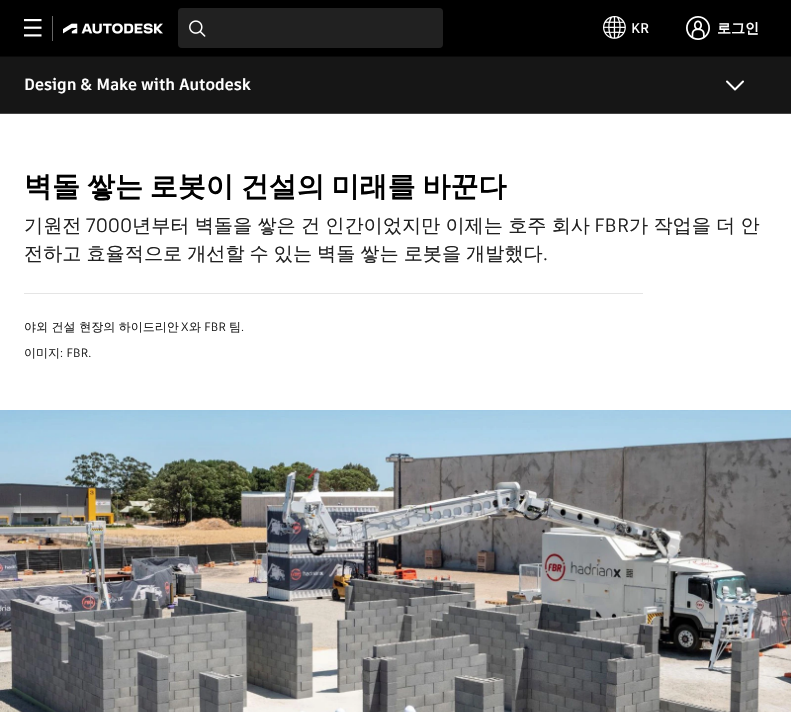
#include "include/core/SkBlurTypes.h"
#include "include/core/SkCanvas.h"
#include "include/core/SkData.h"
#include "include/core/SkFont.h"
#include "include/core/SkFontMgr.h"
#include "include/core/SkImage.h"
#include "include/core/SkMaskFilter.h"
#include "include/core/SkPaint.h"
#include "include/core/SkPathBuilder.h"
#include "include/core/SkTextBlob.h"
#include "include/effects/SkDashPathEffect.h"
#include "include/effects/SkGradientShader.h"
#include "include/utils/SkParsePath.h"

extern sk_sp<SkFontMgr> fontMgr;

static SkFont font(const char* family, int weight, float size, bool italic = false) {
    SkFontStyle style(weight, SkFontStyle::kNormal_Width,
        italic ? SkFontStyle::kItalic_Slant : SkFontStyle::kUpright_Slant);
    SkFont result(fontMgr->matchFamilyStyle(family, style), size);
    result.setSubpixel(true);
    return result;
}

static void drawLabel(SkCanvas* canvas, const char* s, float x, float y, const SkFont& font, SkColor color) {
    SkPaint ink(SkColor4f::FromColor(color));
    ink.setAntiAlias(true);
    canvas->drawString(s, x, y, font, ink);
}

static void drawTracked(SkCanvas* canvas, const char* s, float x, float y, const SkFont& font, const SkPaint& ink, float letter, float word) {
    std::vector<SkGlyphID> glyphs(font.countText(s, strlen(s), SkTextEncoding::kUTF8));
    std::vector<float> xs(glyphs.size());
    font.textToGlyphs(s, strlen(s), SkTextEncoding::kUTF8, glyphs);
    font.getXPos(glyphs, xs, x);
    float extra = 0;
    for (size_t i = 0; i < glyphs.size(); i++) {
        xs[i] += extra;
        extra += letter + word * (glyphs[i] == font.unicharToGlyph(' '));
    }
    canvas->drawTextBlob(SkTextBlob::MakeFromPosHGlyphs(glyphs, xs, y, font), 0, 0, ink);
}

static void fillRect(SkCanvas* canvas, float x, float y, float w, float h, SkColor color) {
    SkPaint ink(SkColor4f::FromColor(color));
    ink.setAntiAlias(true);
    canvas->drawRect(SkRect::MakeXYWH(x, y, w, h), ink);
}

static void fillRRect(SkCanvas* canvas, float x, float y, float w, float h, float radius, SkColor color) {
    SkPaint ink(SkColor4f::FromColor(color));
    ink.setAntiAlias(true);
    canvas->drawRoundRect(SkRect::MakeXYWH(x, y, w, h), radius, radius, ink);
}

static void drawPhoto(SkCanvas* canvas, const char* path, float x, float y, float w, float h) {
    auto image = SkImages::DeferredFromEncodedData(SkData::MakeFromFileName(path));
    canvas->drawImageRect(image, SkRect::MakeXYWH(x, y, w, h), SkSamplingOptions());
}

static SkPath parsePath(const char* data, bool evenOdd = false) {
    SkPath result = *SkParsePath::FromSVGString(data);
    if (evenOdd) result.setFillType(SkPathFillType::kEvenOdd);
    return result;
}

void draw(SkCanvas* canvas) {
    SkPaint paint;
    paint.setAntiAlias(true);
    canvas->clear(0xFFFFFFFF);
    fillRect(canvas, 0, 0, 791, 56, 0xFF000000);
    fillRect(canvas, 0, 56, 791, 1, 0xFF0A0A0A);
    drawPhoto(canvas, "assets/img1.png", 24, 19, 18, 18);
    fillRect(canvas, 52, 16, 1, 25, 0xFF666666);
    drawPhoto(canvas, "assets/img2.png", 63, 23, 100, 11);
    fillRRect(canvas, 178, 8, 265, 40, 4, 0xFF212121);
    drawPhoto(canvas, "assets/img3.png", 189, 20, 17, 17);
    drawPhoto(canvas, "assets/img4.png", 603, 16, 23, 23);
    SkFont font1 = font("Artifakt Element", 600, 14);
    drawLabel(canvas, "KR", 631, 33, font1, 0xFFFFFFFF);
    drawPhoto(canvas, "assets/img5.png", 686, 16, 24, 24);
    SkFont font2 = font("WenQuanYi Zen Hei", 700, 14);
    drawLabel(canvas, "로그인", 717, 33, font2, 0xFFFFFFFF);
    fillRect(canvas, 0, 57, 791, 56, 0xFF161616);
    fillRect(canvas, 0, 113, 791, 1, 0xFF454545);
    SkFont font3 = font("Artifakt Element", 700, 16);
    drawLabel(canvas, "Design & Make with Autodesk", 24, 90, font3, 0xFFFFFFFF);
    paint.setStroke(true);
    paint.setStrokeWidth(2);
    paint.setStrokeCap(SkPaint::kRound_Cap);
    paint.setStrokeJoin(SkPaint::kRound_Join);
    paint.setColor(0xFFFFFFFF);
    canvas->drawPath(parsePath("M743 81.5L735 89.5L727 81.5"), paint);
    SkFont font4 = font("WenQuanYi Zen Hei", 700, 28);
    paint.setStroke(false);
    paint.setColor(0xFF000000);
    drawTracked(canvas, "벽돌 쌓는 로봇이 건설의 미래를 바꾼다", 24, 196, font4, paint, 0, -1.5f);
    SkFont font5 = font("WenQuanYi Zen Hei", 500, 19.15f);
    drawLabel(canvas, "기원전", 24, 232, font5, 0xFF212121);
    SkFont font6 = font("Artifakt Element", 400, 19.15f);
    drawLabel(canvas, "7000", 86, 232, font6, 0xFF212121);
    paint.setColor(0xFF212121);
    drawTracked(canvas, "년부터 벽돌을 쌓은 건 인간이었지만 이제는 호주 회사", 132, 232, font5, paint, 0, -0.5f);
    drawLabel(canvas, "FBR", 594, 232, font6, 0xFF212121);
    drawTracked(canvas, "가 작업을 더 안", 629, 232, font5, paint, 0, -0.5f);
    drawTracked(canvas, "전하고 효율적으로 개선할 수 있는 벽돌 쌓는 로봇을 개발했다", 24, 260, font5, paint, 0, -0.75f);
    drawLabel(canvas, ".", 543, 260, font6, 0xFF212121);
    fillRect(canvas, 24, 293, 619, 1, 0xFFE5E5E5);
    SkFont font7 = font("WenQuanYi Zen Hei", 500, 12);
    drawLabel(canvas, "야외 건설 현장의 하이드리안", 24, 331, font7, 0xFF212121);
    SkFont font8 = font("Artifakt Element", 400, 12);
    drawLabel(canvas, "X", 181, 331, font8, 0xFF212121);
    drawLabel(canvas, "와", 189, 331, font7, 0xFF212121);
    drawLabel(canvas, "FBR", 204, 331, font8, 0xFF212121);
    drawLabel(canvas, "팀", 229, 331, font7, 0xFF212121);
    drawLabel(canvas, ".", 241, 331, font8, 0xFF212121);
    drawLabel(canvas, "이미지", 24, 357, font7, 0xFF212121);
    drawLabel(canvas, ": FBR.", 60, 357, font8, 0xFF212121);
    drawPhoto(canvas, "assets/img6.png", 0, 410, 791, 302);
}
